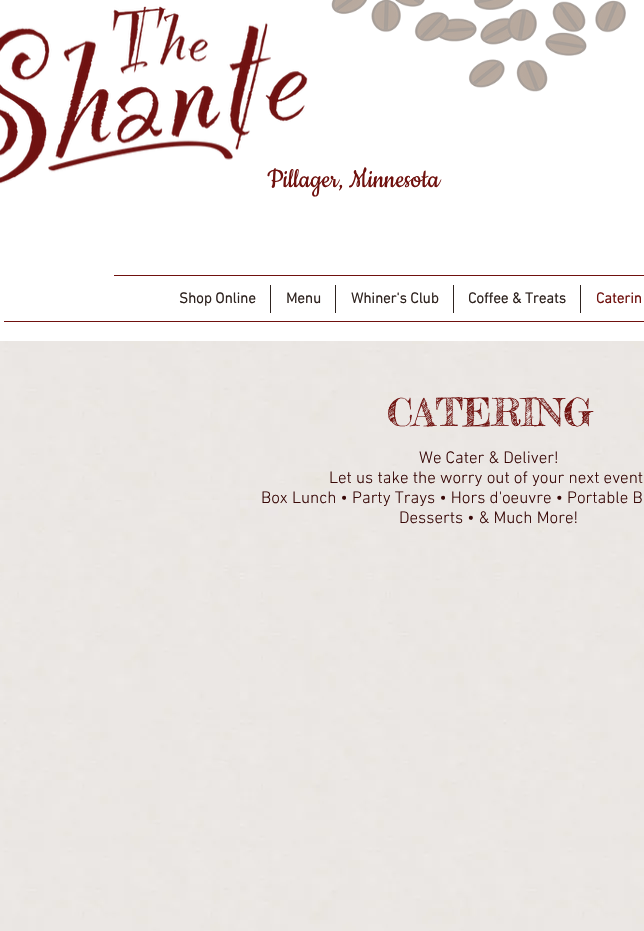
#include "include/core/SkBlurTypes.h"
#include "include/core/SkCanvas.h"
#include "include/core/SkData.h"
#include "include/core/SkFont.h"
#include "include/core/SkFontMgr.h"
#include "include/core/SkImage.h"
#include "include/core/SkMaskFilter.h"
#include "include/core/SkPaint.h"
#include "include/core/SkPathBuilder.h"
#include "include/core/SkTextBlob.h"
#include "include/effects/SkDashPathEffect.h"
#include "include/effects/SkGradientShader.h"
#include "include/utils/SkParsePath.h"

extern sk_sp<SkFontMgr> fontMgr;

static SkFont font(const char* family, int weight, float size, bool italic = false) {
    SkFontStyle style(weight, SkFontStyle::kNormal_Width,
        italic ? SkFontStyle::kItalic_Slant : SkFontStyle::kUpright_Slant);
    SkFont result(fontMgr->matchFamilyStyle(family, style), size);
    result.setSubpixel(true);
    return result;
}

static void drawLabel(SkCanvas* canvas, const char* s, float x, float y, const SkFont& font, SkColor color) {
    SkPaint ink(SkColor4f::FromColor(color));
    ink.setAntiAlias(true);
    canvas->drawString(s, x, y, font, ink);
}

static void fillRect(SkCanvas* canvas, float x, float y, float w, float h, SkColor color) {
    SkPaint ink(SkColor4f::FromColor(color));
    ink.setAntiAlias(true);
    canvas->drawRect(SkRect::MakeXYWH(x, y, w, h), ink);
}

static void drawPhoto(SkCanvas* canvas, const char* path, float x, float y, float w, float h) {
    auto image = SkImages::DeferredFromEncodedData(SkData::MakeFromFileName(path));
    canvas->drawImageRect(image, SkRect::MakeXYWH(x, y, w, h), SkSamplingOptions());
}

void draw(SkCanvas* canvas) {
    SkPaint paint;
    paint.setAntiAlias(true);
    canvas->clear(0xFFFFFFFF);
    drawPhoto(canvas, "assets/img1.png", 0, 6, 308, 178);
    drawPhoto(canvas, "assets/img2.png", 331, 0, 295, 92);
    SkFont font1 = font("Cookie", 400, 30);
    drawLabel(canvas, "Pillager, Minnesota", 267, 187, font1, 0xFF70110E);
    fillRect(canvas, 114, 275, 530, 1, 0xFF70110E);
    SkFont font2 = font("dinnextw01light", 700, 15);
    drawLabel(canvas, "Shop Online", 179, 303, font2, 0xFF2E231F);
    fillRect(canvas, 270, 285, 1, 28, 0xFF2E231F);
    drawLabel(canvas, "Menu", 286, 303, font2, 0xFF2E231F);
    fillRect(canvas, 335, 285, 1, 28, 0xFF2E231F);
    drawLabel(canvas, "Whiner's Club", 351, 303, font2, 0xFF2E231F);
    fillRect(canvas, 453, 285, 1, 28, 0xFF2E231F);
    drawLabel(canvas, "Coffee & Treats", 468, 303, font2, 0xFF2E231F);
    fillRect(canvas, 580, 285, 1, 28, 0xFF2E231F);
    drawLabel(canvas, "Caterin", 596, 303, font2, 0xFF70110E);
    fillRect(canvas, 4, 321, 640, 1, 0xFF70110E);
    drawPhoto(canvas, "assets/img3.png", 0, 341, 644, 590);
    SkFont font3 = font("Fredericka the Great", 400, 38);
    drawLabel(canvas, "CATERING", 387, 426, font3, 0xFF70110E);
    SkFont font4 = font("dinnextw01light", 300, 17);
    drawLabel(canvas, "We Cater & Deliver!", 419, 463, font4, 0xFF380807);
    drawLabel(canvas, "Let us take the worry out of your next event", 329, 483, font4, 0xFF380807);
    drawLabel(canvas, "Box Lunch • Party Trays • Hors d'oeuvre • Portable B", 261, 503, font4, 0xFF380807);
    drawLabel(canvas, "Desserts • & Much More!", 399, 523, font4, 0xFF380807);
}
